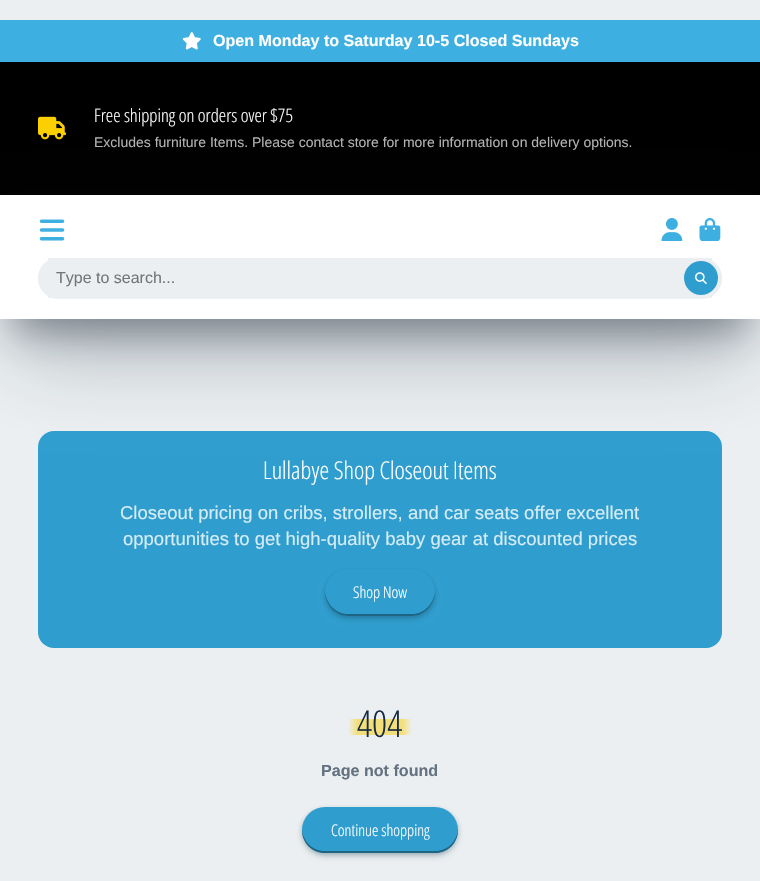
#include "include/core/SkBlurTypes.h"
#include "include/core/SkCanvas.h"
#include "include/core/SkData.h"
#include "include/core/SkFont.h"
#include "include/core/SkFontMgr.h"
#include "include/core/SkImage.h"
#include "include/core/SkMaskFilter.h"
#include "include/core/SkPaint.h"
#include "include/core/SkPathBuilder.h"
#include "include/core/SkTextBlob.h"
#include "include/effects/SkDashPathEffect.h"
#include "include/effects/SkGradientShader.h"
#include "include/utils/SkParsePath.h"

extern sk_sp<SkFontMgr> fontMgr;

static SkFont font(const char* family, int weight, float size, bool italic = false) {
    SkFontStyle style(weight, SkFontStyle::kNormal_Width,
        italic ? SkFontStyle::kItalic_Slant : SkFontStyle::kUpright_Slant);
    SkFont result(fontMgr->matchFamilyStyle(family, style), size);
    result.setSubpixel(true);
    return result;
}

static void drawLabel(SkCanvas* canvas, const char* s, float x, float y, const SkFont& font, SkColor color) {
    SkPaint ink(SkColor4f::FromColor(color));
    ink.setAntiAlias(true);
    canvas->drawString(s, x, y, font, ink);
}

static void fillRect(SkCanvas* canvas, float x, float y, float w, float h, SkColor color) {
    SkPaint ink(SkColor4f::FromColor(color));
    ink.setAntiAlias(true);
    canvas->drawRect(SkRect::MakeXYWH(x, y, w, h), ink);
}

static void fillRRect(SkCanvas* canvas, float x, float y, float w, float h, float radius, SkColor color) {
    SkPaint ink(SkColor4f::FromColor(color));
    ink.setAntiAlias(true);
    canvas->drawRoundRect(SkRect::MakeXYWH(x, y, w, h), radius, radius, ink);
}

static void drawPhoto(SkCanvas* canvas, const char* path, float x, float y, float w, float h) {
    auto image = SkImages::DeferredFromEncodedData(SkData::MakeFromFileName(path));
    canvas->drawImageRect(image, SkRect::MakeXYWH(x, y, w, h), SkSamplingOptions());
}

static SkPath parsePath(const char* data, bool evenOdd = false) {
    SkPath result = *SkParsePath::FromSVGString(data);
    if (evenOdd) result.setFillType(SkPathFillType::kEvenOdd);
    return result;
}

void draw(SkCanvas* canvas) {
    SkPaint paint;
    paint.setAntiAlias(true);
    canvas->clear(0xFFEBEFF1);
    fillRect(canvas, 0, 20, 760, 42, 0xFF3EAFE1);
    drawPhoto(canvas, "assets/img1.png", 182, 32, 19, 18);
    SkFont font1 = font("Liberation Sans", 700, 16.1f);
    drawLabel(canvas, "Open Monday to Saturday 10-5 Closed Sundays", 213, 46, font1, 0xFFFFFFFF);
    fillRect(canvas, 0, 62, 760, 133, 0xFF000000);
    drawPhoto(canvas, "assets/img2.png", 38, 116, 28, 24);
    SkFont font2 = font("Open Sans Condensed", 300, 18.5f);
    drawLabel(canvas, "Free shipping on orders over $75", 94, 122, font2, 0xFFFFFFFF);
    SkFont font3 = font("Liberation Sans", 400, 14);
    drawLabel(canvas, "Excludes furniture Items. Please contact store for more information on delivery options.", 94, 147, font3, 0xFFB3B3B3);
    paint.setColor(0x660F1E2D);
    paint.setMaskFilter(SkMaskFilter::MakeBlur(kNormal_SkBlurStyle, 19));
    canvas->drawRect(SkRect::MakeXYWH(14, 235, 732, 96), paint);
    paint.setMaskFilter(nullptr);
    fillRRect(canvas, 38, 431, 684, 217, 16, 0xFF2F9ECF);
    paint.setColor(0x4D0F1E2D);
    paint.setMaskFilter(SkMaskFilter::MakeBlur(kNormal_SkBlurStyle, 44));
    canvas->drawRect(SkRect::MakeXYWH(14, 253, 732, 96), paint);
    paint.setMaskFilter(nullptr);
    fillRect(canvas, 0, 195, 760, 124, 0xFFFFFFFF);
    drawPhoto(canvas, "assets/img3.png", 39, 219, 26, 22);
    drawPhoto(canvas, "assets/img4.png", 661, 218, 22, 23);
    drawPhoto(canvas, "assets/img5.png", 699, 218, 22, 23);
    fillRRect(canvas, 38, 258, 684, 40, 20, 0xFFEBEFF1);
    fillRect(canvas, 48, 258, 664, 40, 0xFFEBEFF1);
    fillRRect(canvas, 38, 258, 684, 41, 20.5f, 0xFFEBEFF1);
    SkFont font4 = font("Liberation Sans", 400, 16);
    drawLabel(canvas, "Type to search...", 56, 283, font4, 0xFF757575);
    paint.setColor(0xFF2F9ECF);
    canvas->drawCircle(701, 278, 17, paint);
    drawPhoto(canvas, "assets/img6.png", 695, 272, 12, 12);
    SkFont font5 = font("Open Sans Condensed", 300, 24.5f);
    drawLabel(canvas, "Lullabye Shop Closeout Items", 263, 479, font5, 0xFFFFFFFF);
    SkFont font6 = font("Liberation Sans", 400, 18.5f);
    drawLabel(canvas, "Closeout pricing on cribs, strollers, and car seats offer excellent", 120, 519, font6, 0xFFD5ECF5);
    drawLabel(canvas, "opportunities to get high-quality baby gear at discounted prices", 123, 545, font6, 0xFFD5ECF5);
    paint.setColor(0x26133F52);
    paint.setMaskFilter(SkMaskFilter::MakeBlur(kNormal_SkBlurStyle, 5));
    canvas->drawRoundRect(SkRect::MakeXYWH(327, 576, 106, 42), 21, 21, paint);
    paint.setMaskFilter(nullptr);
    paint.setColor(0x4D133F52);
    paint.setMaskFilter(SkMaskFilter::MakeBlur(kNormal_SkBlurStyle, 2.5f));
    canvas->drawRoundRect(SkRect::MakeXYWH(325, 571, 110, 47), 23.5f, 23.5f, paint);
    paint.setMaskFilter(nullptr);
    fillRRect(canvas, 325, 569, 110, 47, 23.5f, 0xFF2F9ECF);
    paint.setColor(0xFF1E6584);
    canvas->drawPath(parsePath("M325 591C326 604 336 614 348 614H412C424 614 434 604 435 591V592C435 605 424 616 412 616H348C336 616 325 605 325 592Z"), paint);
    SkFont font7 = font("Open Sans Condensed", 300, 16.1f);
    drawLabel(canvas, "Shop Now", 353, 598, font7, 0xFFFFFFFF);
    {
        const SkColor colors[] = {0xFFEBEFF1, 0xFFF3DF79, 0xFFF3DF79, 0xFFEBEFF1};
        const float stops[] = {0, 0.15f, 0.85f, 1};
        const SkPoint ends[] = {{348, 727}, {412, 727}};
        paint.setShader(SkGradientShader::MakeLinear(ends, colors, stops, 4, SkTileMode::kClamp));
        paint.setAlpha(255);
    }
    canvas->drawRect(SkRect::MakeXYWH(348, 719, 64, 16), paint);
    SkFont font8 = font("Open Sans Condensed", 300, 37);
    drawLabel(canvas, "404", 357, 737, font8, 0xFF162A40);
    drawLabel(canvas, "Page not found", 321, 776, font1, 0xFF637180);
    paint.setShader(nullptr);
    paint.setColor(0x26133F52);
    paint.setMaskFilter(SkMaskFilter::MakeBlur(kNormal_SkBlurStyle, 5));
    canvas->drawRoundRect(SkRect::MakeXYWH(304, 814, 152, 41), 20.5f, 20.5f, paint);
    paint.setMaskFilter(nullptr);
    paint.setColor(0x4D133F52);
    paint.setMaskFilter(SkMaskFilter::MakeBlur(kNormal_SkBlurStyle, 2.5f));
    canvas->drawRoundRect(SkRect::MakeXYWH(302, 809, 156, 46), 23, 23, paint);
    paint.setMaskFilter(nullptr);
    fillRRect(canvas, 302, 807, 156, 46, 23, 0xFF2F9ECF);
    paint.setColor(0xFF1E6584);
    canvas->drawPath(parsePath("M302 829V830C302 843 312 853 325 853H435C448 853 458 843 458 830V829C457 841 448 851 435 851H325C312 851 303 841 302 829Z"), paint);
    drawLabel(canvas, "Continue shopping", 331, 836, font7, 0xFFFFFFFF);
}
